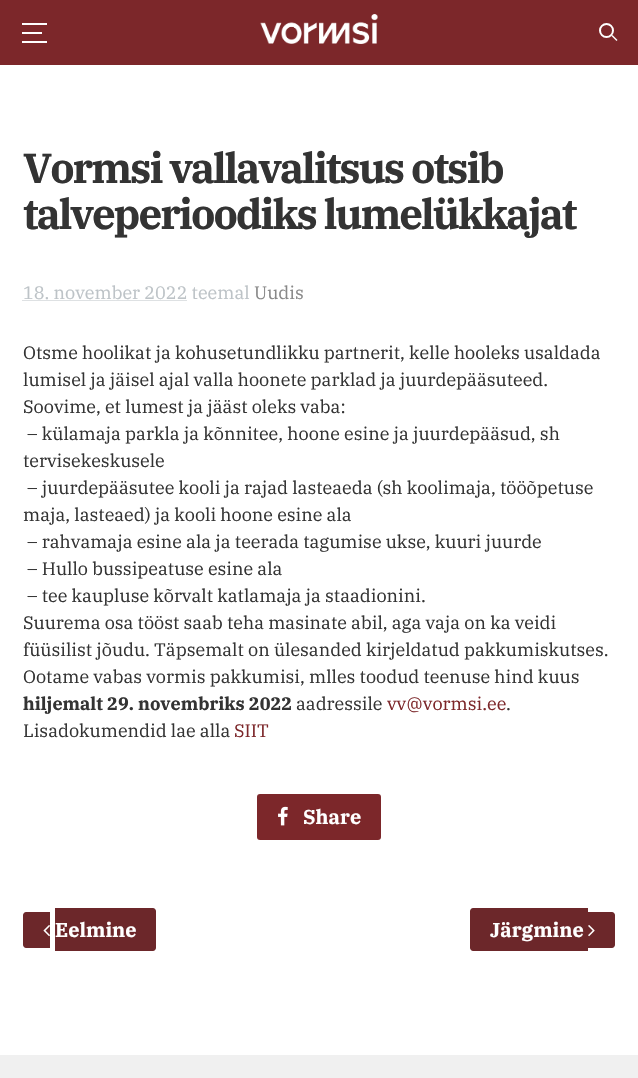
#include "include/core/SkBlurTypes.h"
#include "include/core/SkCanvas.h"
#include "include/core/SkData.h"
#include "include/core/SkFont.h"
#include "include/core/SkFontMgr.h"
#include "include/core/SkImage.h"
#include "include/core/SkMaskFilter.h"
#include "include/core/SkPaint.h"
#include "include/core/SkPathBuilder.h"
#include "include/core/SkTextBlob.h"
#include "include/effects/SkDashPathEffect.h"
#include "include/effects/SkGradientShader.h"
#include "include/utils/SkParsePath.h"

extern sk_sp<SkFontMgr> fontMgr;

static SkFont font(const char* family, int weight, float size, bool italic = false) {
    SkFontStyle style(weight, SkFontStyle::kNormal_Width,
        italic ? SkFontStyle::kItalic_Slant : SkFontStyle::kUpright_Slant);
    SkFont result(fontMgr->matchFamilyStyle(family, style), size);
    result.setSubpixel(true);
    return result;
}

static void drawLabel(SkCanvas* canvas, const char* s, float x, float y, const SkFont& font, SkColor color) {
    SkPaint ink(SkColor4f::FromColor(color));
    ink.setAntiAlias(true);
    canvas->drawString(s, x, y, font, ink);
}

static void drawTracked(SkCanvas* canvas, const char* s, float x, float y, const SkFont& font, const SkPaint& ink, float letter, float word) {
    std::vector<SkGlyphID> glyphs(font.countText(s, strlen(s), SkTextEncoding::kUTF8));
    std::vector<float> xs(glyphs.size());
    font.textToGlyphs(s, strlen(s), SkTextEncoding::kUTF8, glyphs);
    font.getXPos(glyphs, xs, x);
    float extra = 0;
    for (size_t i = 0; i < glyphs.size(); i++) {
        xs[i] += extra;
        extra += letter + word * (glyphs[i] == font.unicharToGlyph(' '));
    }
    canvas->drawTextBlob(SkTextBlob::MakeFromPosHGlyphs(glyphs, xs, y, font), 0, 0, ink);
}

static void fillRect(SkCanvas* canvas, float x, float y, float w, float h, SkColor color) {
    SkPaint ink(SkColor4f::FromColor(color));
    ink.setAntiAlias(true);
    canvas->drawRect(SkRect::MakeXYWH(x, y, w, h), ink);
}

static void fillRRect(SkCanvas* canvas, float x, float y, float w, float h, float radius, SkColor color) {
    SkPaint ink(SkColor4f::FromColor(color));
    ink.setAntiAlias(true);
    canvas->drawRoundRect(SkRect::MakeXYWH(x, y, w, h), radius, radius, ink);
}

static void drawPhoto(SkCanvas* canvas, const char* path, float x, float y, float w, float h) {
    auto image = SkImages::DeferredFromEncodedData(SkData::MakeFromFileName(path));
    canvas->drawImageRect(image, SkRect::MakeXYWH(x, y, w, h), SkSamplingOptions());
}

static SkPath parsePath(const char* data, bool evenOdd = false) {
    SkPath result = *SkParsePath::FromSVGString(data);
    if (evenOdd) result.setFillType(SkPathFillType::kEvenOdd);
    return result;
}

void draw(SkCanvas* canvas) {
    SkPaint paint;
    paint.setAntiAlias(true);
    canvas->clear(0xFFFFFFFF);
    fillRect(canvas, 0, 0, 638, 65, 0xFF7C272A);
    fillRect(canvas, 22, 23, 25, 2, 0xFFFFFFFF);
    fillRect(canvas, 22, 32, 20, 2, 0xFFFFFFFF);
    fillRect(canvas, 22, 41, 25, 2, 0xFFFFFFFF);
    drawPhoto(canvas, "assets/img1.png", 260, 14, 118, 30);
    paint.setStroke(true);
    paint.setStrokeWidth(2);
    paint.setColor(0xFFFFFFFF);
    canvas->drawCircle(606.5f, 30.5f, 6.5f, paint);
    paint.setStroke(false);
    canvas->drawPath(parsePath("M612.5 35L617.5 40L616.5 41L611.5 36Z"), paint);
    SkFont font1 = font("IBM Plex Serif", 700, 42);
    paint.setColor(0xFF333333);
    drawTracked(canvas, "Vormsi vallavalitsus otsib", 23, 183, font1, paint, -2, 0);
    drawTracked(canvas, "talveperioodiks lumelükkajat", 23, 229, font1, paint, -2, 0);
    SkFont font2 = font("IBM Plex Serif", 400, 18);
    drawLabel(canvas, "18. november 2022 teemal", 23, 299, font2, 0xFFBDC3C7);
    paint.setStroke(true);
    paint.setStrokeWidth(1);
    paint.setColor(0xFFBDC3C7);
    paint.setPathEffect(SkDashPathEffect::Make({{1, 1}}, 0));
    canvas->drawPath(parsePath("M22.5 300.5H187"), paint);
    paint.setPathEffect(nullptr);
    drawLabel(canvas, "Uudis", 254, 299, font2, 0xFF888888);
    drawLabel(canvas, "Otsme hoolikat ja kohusetundlikku partnerit, kelle hooleks usaldada", 23, 359, font2, 0xFF333333);
    drawLabel(canvas, "lumisel ja jäisel ajal valla hoonete parklad ja juurdepääsuteed.", 23, 386, font2, 0xFF333333);
    drawLabel(canvas, "Soovime, et lumest ja jääst oleks vaba:", 23, 413, font2, 0xFF333333);
    drawLabel(canvas, "– külamaja parkla ja kõnnitee, hoone esine ja juurdepääsud, sh", 27, 440, font2, 0xFF333333);
    drawLabel(canvas, "tervisekeskusele", 23, 467, font2, 0xFF333333);
    drawLabel(canvas, "– juurdepääsutee kooli ja rajad lasteaeda (sh koolimaja, tööõpetuse", 27, 494, font2, 0xFF333333);
    drawLabel(canvas, "maja, lasteaed) ja kooli hoone esine ala", 23, 521, font2, 0xFF333333);
    drawLabel(canvas, "– rahvamaja esine ala ja teerada tagumise ukse, kuuri juurde", 27, 548, font2, 0xFF333333);
    drawLabel(canvas, "– Hullo bussipeatuse esine ala", 27, 575, font2, 0xFF333333);
    drawLabel(canvas, "– tee kaupluse kõrvalt katlamaja ja staadionini.", 27, 602, font2, 0xFF333333);
    drawLabel(canvas, "Suurema osa tööst saab teha masinate abil, aga vaja on ka veidi", 23, 629, font2, 0xFF333333);
    drawLabel(canvas, "füüsilist jõudu. Täpsemalt on ülesanded kirjeldatud pakkumiskutses.", 23, 656, font2, 0xFF333333);
    drawLabel(canvas, "Ootame vabas vormis pakkumisi, mlles toodud teenuse hind kuus", 23, 683, font2, 0xFF333333);
    SkFont font3 = font("IBM Plex Serif", 700, 18);
    drawLabel(canvas, "hiljemalt 29. novembriks 2022", 23, 710, font3, 0xFF333333);
    drawLabel(canvas, "aadressile", 296, 710, font2, 0xFF333333);
    drawLabel(canvas, "vv@vormsi.ee", 387, 710, font2, 0xFF7C272A);
    drawLabel(canvas, ".", 506, 710, font2, 0xFF333333);
    drawLabel(canvas, "Lisadokumendid lae alla", 23, 737, font2, 0xFF333333);
    drawLabel(canvas, "SIIT", 234, 737, font2, 0xFF7C272A);
    fillRRect(canvas, 257, 794, 124, 46, 3, 0xFF7C272A);
    drawPhoto(canvas, "assets/img2.png", 278, 806, 10, 20);
    SkFont font4 = font("IBM Plex Serif", 700, 20);
    drawLabel(canvas, "Share", 303, 824, font4, 0xFFFFFFFF);
    paint.setStroke(false);
    paint.setColor(0xFF6C272A);
    canvas->drawPath(parsePath("M26 912H50V948H26C24.5 948 23 946.5 23 945V915C23 913.5 24.5 912 26 912Z"), paint);
    canvas->drawPath(parsePath("M55 908H153C154.5 908 156 909.5 156 911V948C156 949.5 154.5 951 153 951H55Z"), paint);
    drawPhoto(canvas, "assets/img3.png", 43, 925, 7, 12);
    drawLabel(canvas, "Eelmine", 55, 937, font4, 0xFFFFFFFF);
    canvas->drawPath(parsePath("M473 908H588V951H473C471.5 951 470 949.5 470 948V911C470 909.5 471.5 908 473 908Z"), paint);
    canvas->drawPath(parsePath("M588 912H612C613.5 912 615 913.5 615 915V945C615 946.5 613.5 948 612 948H588Z"), paint);
    drawLabel(canvas, "Järgmine", 490, 937, font4, 0xFFFFFFFF);
    drawPhoto(canvas, "assets/img4.png", 588, 925, 7, 12);
    fillRect(canvas, 0, 1055, 638, 23, 0xFFF0F0F0);
}
